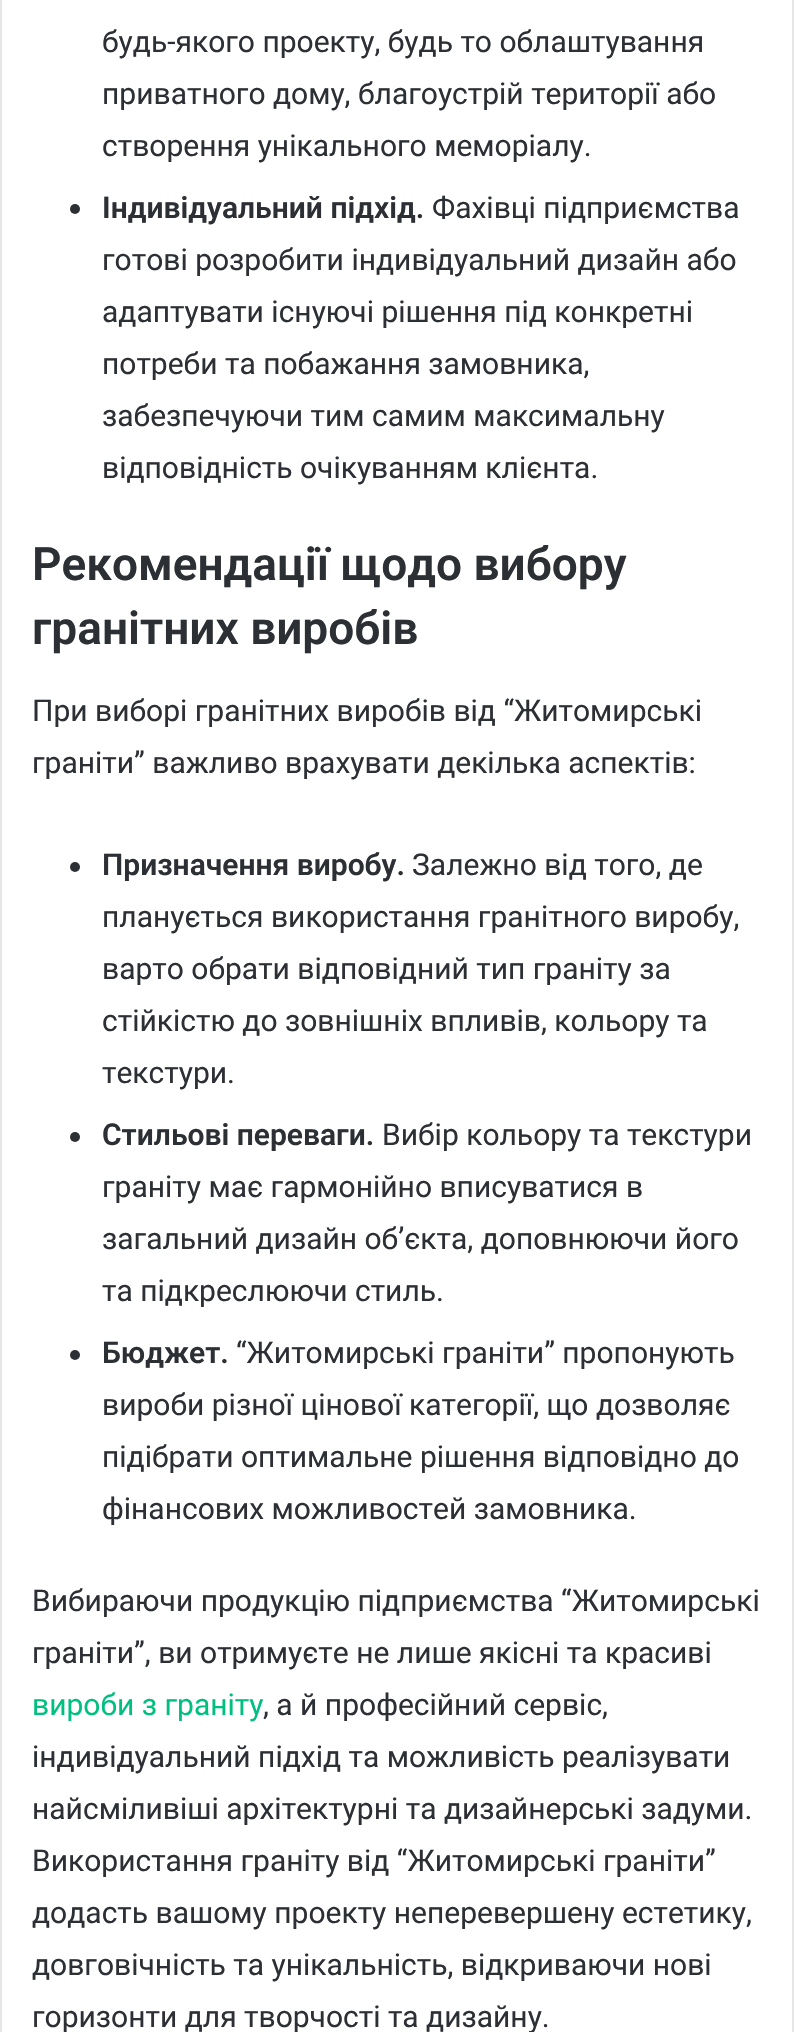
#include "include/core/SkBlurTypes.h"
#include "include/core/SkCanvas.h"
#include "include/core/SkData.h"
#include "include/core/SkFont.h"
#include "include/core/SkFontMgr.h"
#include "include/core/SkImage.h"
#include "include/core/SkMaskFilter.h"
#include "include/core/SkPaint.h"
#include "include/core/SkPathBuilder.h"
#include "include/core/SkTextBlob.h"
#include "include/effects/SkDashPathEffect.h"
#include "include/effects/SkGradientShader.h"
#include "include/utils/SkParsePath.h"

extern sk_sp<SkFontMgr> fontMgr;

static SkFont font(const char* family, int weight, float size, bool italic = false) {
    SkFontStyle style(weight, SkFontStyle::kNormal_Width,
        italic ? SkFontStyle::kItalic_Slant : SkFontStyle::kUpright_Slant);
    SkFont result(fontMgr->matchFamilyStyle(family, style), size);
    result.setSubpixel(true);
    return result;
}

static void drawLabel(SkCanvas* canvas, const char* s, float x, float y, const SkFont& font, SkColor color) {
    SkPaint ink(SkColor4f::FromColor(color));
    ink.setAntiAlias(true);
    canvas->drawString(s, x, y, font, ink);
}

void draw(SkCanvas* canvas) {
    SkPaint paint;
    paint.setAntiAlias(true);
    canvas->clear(0xFFFFFFFF);
    paint.setStroke(true);
    paint.setStrokeWidth(2);
    paint.setColor(0xFFE6E6E6);
    canvas->drawRect(SkRect::MakeXYWH(1, -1, 792, 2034), paint);
    SkFont font1 = font("Roboto", 400, 30);
    drawLabel(canvas, "будь-якого проекту, будь то облаштування", 102, 52, font1, 0xFF2C2F34);
    drawLabel(canvas, "приватного дому, благоустрій території або", 102, 104, font1, 0xFF2C2F34);
    drawLabel(canvas, "створення унікального меморіалу.", 102, 156, font1, 0xFF2C2F34);
    paint.setStroke(false);
    paint.setColor(0xFF2C2F34);
    canvas->drawCircle(75, 209, 5, paint);
    SkFont font2 = font("Roboto", 600, 30);
    drawLabel(canvas, "Індивідуальний підхід.", 102, 218, font2, 0xFF2C2F34);
    drawLabel(canvas, "Фахівці підприємства", 432, 218, font1, 0xFF2C2F34);
    drawLabel(canvas, "готові розробити індивідуальний дизайн або", 102, 270, font1, 0xFF2C2F34);
    drawLabel(canvas, "адаптувати існуючі рішення під конкретні", 102, 322, font1, 0xFF2C2F34);
    drawLabel(canvas, "потреби та побажання замовника,", 102, 374, font1, 0xFF2C2F34);
    drawLabel(canvas, "забезпечуючи тим самим максимальну", 102, 426, font1, 0xFF2C2F34);
    drawLabel(canvas, "відповідність очікуванням клієнта.", 102, 478, font1, 0xFF2C2F34);
    SkFont font3 = font("Roboto", 600, 46);
    drawLabel(canvas, "Рекомендації щодо вибору", 32, 580, font3, 0xFF2C2F34);
    drawLabel(canvas, "гранітних виробів", 32, 644, font3, 0xFF2C2F34);
    drawLabel(canvas, "При виборі гранітних виробів від “Житомирські", 32, 721, font1, 0xFF2C2F34);
    drawLabel(canvas, "граніти” важливо врахувати декілька аспектів:", 32, 773, font1, 0xFF2C2F34);
    canvas->drawCircle(75, 867, 5, paint);
    drawLabel(canvas, "Призначення виробу.", 102, 875, font2, 0xFF2C2F34);
    drawLabel(canvas, "Залежно від того, де", 412, 875, font1, 0xFF2C2F34);
    drawLabel(canvas, "планується використання гранітного виробу,", 102, 927, font1, 0xFF2C2F34);
    drawLabel(canvas, "варто обрати відповідний тип граніту за", 102, 979, font1, 0xFF2C2F34);
    drawLabel(canvas, "стійкістю до зовнішніх впливів, кольору та", 102, 1031, font1, 0xFF2C2F34);
    drawLabel(canvas, "текстури.", 102, 1083, font1, 0xFF2C2F34);
    canvas->drawCircle(75, 1137, 5, paint);
    drawLabel(canvas, "Стильові переваги.", 102, 1145, font2, 0xFF2C2F34);
    drawLabel(canvas, "Вибір кольору та текстури", 382, 1145, font1, 0xFF2C2F34);
    drawLabel(canvas, "граніту має гармонійно вписуватися в", 102, 1197, font1, 0xFF2C2F34);
    drawLabel(canvas, "загальний дизайн об’єкта, доповнюючи його", 102, 1249, font1, 0xFF2C2F34);
    drawLabel(canvas, "та підкреслюючи стиль.", 102, 1301, font1, 0xFF2C2F34);
    canvas->drawCircle(75, 1355, 5, paint);
    drawLabel(canvas, "Бюджет.", 102, 1363, font2, 0xFF2C2F34);
    drawLabel(canvas, "“Житомирські граніти” пропонують", 236, 1363, font1, 0xFF2C2F34);
    drawLabel(canvas, "вироби різної цінової категорії, що дозволяє", 102, 1415, font1, 0xFF2C2F34);
    drawLabel(canvas, "підібрати оптимальне рішення відповідно до", 102, 1467, font1, 0xFF2C2F34);
    drawLabel(canvas, "фінансових можливостей замовника.", 102, 1519, font1, 0xFF2C2F34);
    drawLabel(canvas, "Вибираючи продукцію підприємства “Житомирські", 32, 1611, font1, 0xFF2C2F34);
    drawLabel(canvas, "граніти”, ви отримуєте не лише якісні та красиві", 32, 1663, font1, 0xFF2C2F34);
    drawLabel(canvas, "вироби з граніту", 32, 1715, font1, 0xFF00BF80);
    drawLabel(canvas, ", а й професійний сервіс,", 263, 1715, font1, 0xFF2C2F34);
    drawLabel(canvas, "індивідуальний підхід та можливість реалізувати", 32, 1767, font1, 0xFF2C2F34);
    drawLabel(canvas, "найсміливіші архітектурні та дизайнерські задуми.", 32, 1819, font1, 0xFF2C2F34);
    drawLabel(canvas, "Використання граніту від “Житомирські граніти”", 32, 1871, font1, 0xFF2C2F34);
    drawLabel(canvas, "додасть вашому проекту неперевершену естетику,", 32, 1923, font1, 0xFF2C2F34);
    drawLabel(canvas, "довговічність та унікальність, відкриваючи нові", 32, 1975, font1, 0xFF2C2F34);
    drawLabel(canvas, "горизонти для творчості та дизайну.", 32, 2027, font1, 0xFF2C2F34);
}
